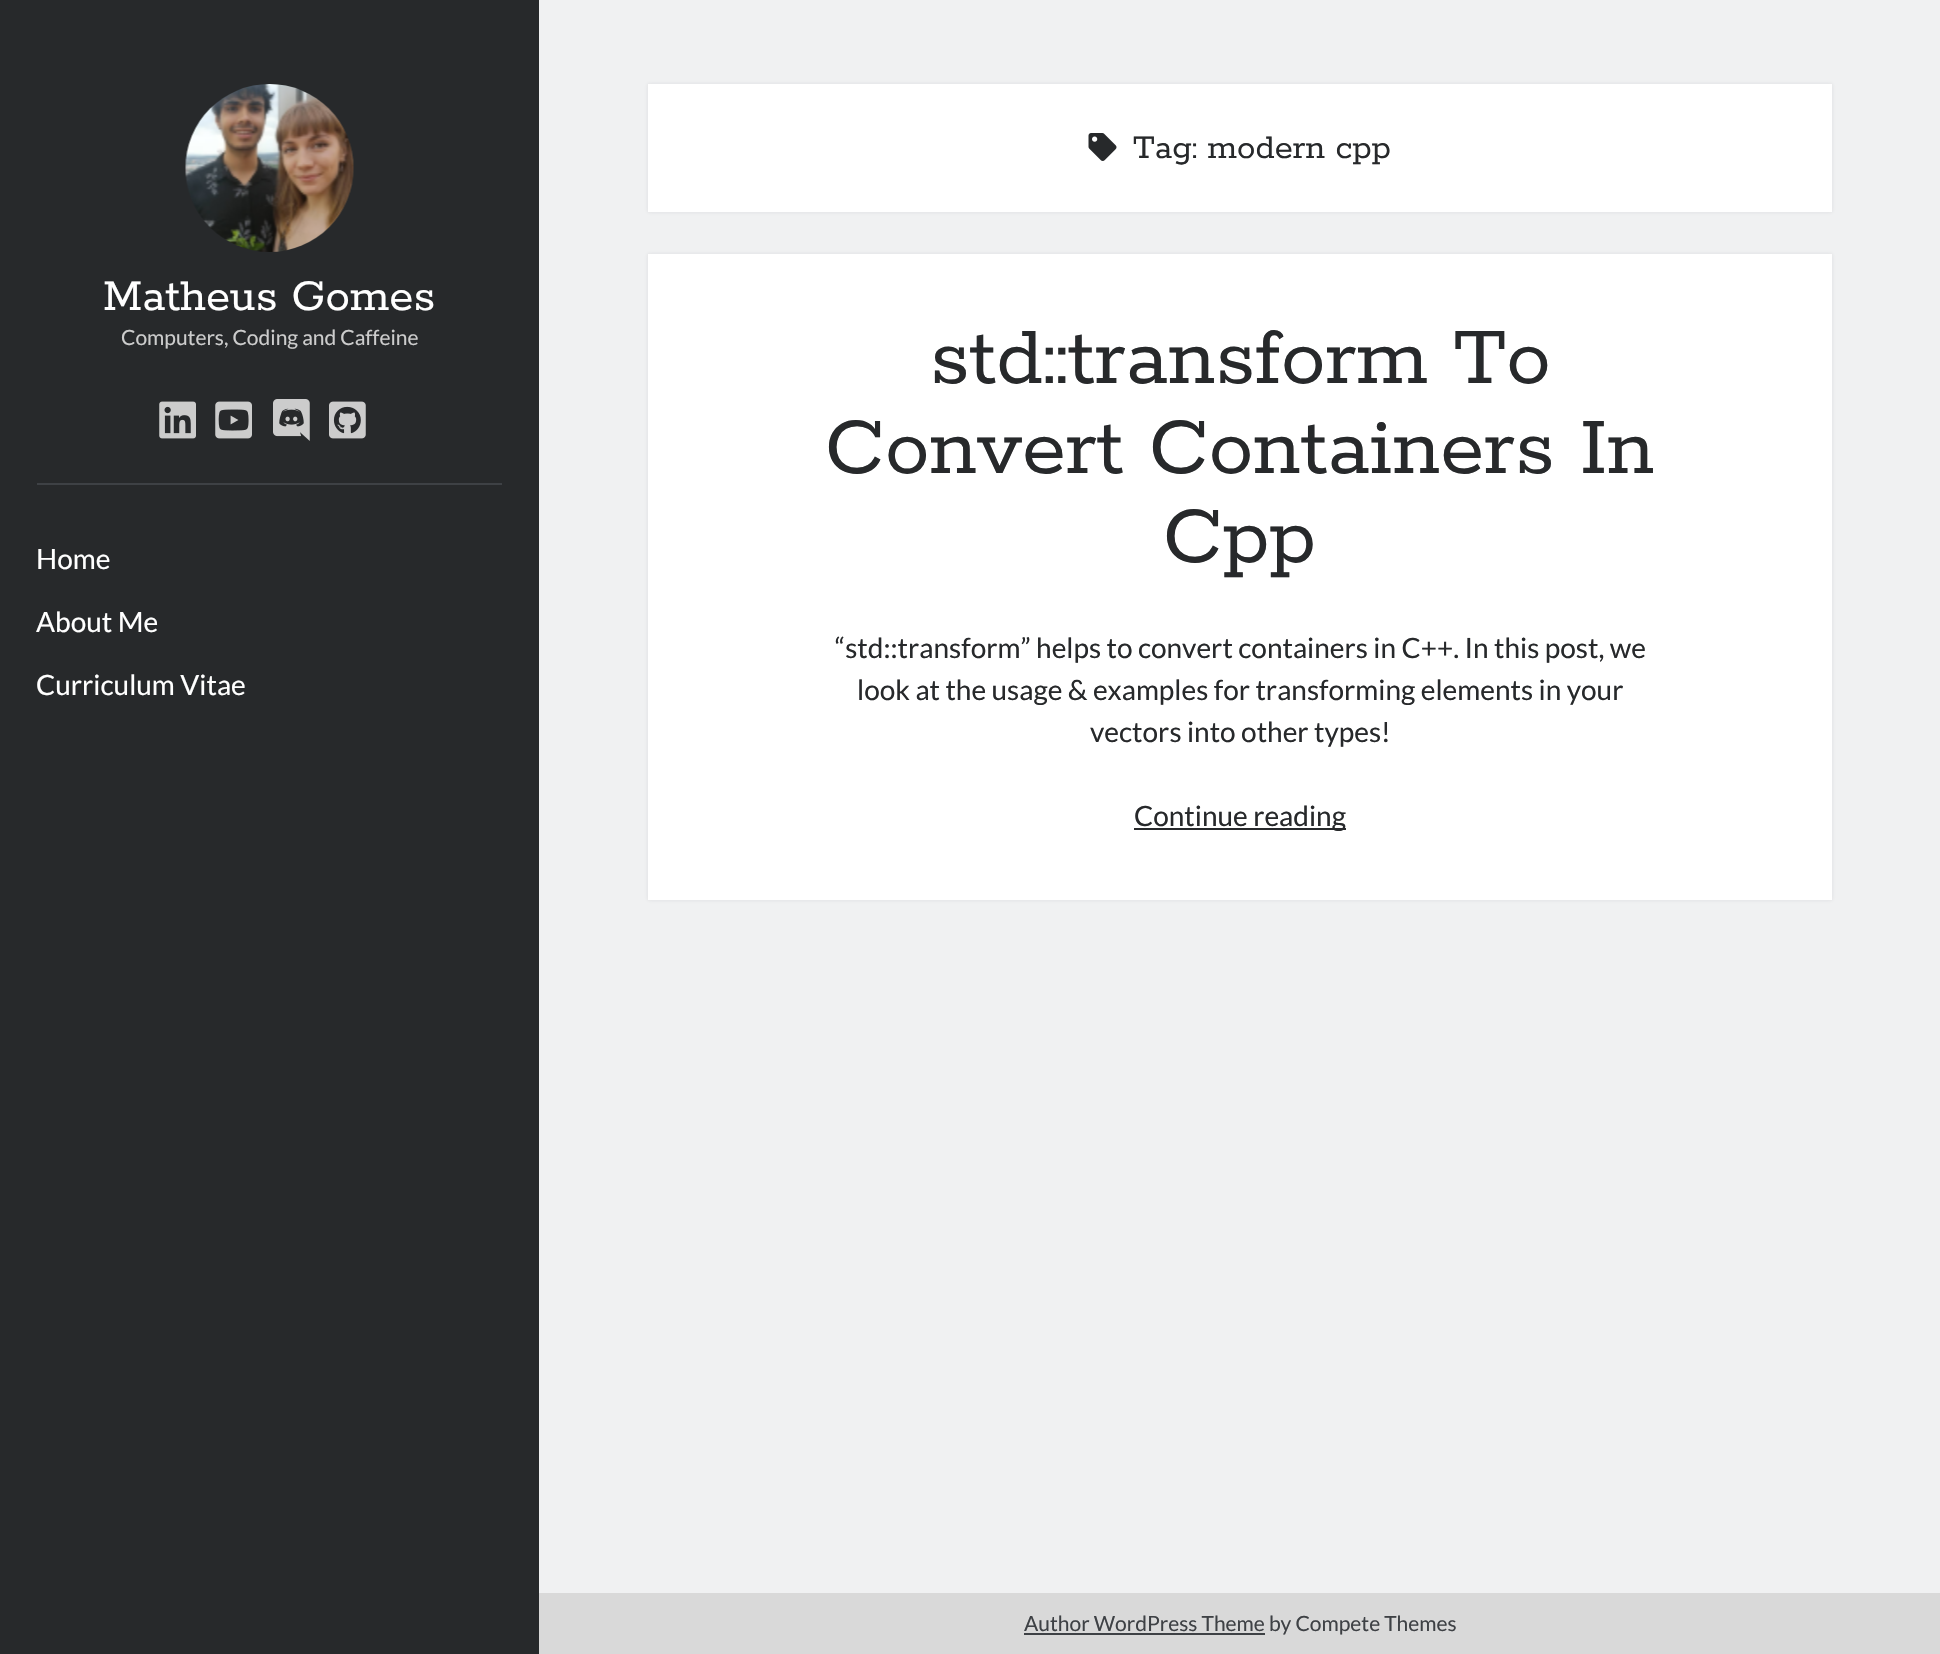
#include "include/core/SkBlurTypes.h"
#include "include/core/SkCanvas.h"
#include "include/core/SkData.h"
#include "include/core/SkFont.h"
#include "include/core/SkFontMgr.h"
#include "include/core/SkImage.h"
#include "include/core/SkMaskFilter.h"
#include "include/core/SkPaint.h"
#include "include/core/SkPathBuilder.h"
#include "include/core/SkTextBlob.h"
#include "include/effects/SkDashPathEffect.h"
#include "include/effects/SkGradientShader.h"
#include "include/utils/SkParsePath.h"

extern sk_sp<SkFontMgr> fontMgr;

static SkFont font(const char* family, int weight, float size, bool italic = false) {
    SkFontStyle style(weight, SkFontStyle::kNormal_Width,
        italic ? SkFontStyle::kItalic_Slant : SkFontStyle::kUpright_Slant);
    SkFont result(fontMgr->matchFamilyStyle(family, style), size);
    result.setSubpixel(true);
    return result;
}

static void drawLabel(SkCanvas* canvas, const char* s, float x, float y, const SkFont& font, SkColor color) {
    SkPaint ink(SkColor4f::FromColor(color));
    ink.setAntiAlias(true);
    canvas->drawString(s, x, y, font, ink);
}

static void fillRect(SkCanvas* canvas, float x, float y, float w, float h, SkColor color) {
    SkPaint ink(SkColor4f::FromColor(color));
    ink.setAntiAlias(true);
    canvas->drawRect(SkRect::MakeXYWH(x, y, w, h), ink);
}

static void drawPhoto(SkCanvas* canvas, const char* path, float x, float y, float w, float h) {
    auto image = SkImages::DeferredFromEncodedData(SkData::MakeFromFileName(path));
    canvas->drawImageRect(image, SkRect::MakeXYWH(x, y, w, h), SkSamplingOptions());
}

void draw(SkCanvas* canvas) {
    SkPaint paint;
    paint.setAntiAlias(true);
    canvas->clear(0xFF27292B);
    drawPhoto(canvas, "assets/img1.png", 185, 84, 169, 168);
    SkFont font1 = font("Rokkitt", 600, 49);
    drawLabel(canvas, "Matheus Gomes", 103, 310, font1, 0xFFFFFFFF);
    SkFont font2 = font("Lato", 400, 21);
    drawLabel(canvas, "Computers, Coding and Caffeine", 121, 345, font2, 0xFFCCCCCC);
    drawPhoto(canvas, "assets/img2.png", 159, 401, 37, 38);
    drawPhoto(canvas, "assets/img3.png", 215, 401, 37, 38);
    drawPhoto(canvas, "assets/img4.png", 273, 399, 37, 42);
    drawPhoto(canvas, "assets/img5.png", 329, 401, 37, 38);
    fillRect(canvas, 37, 483, 465, 2, 0xFF3E4145);
    SkFont font3 = font("Lato", 400, 28);
    drawLabel(canvas, "Home", 36, 569, font3, 0xFFFFFFFF);
    drawLabel(canvas, "About Me", 36, 632, font3, 0xFFFFFFFF);
    drawLabel(canvas, "Curriculum Vitae", 36, 695, font3, 0xFFFFFFFF);
    fillRect(canvas, 539, 0, 1401, 1593, 0xFFF0F1F2);
    paint.setColor(0x1A272B2F);
    paint.setMaskFilter(SkMaskFilter::MakeBlur(kNormal_SkBlurStyle, 2));
    canvas->drawRect(SkRect::MakeXYWH(648, 84, 1184, 128), paint);
    paint.setMaskFilter(nullptr);
    fillRect(canvas, 648, 84, 1184, 128, 0xFFFFFFFF);
    drawPhoto(canvas, "assets/img6.png", 1088, 133, 29, 28);
    SkFont font4 = font("Rokkitt", 600, 36.75f);
    drawLabel(canvas, "Tag: modern cpp", 1133, 158, font4, 0xFF27292B);
    paint.setMaskFilter(SkMaskFilter::MakeBlur(kNormal_SkBlurStyle, 2));
    canvas->drawRect(SkRect::MakeXYWH(648, 254, 1184, 646), paint);
    paint.setMaskFilter(nullptr);
    fillRect(canvas, 648, 254, 1184, 646, 0xFFFFFFFF);
    SkFont font5 = font("Rokkitt", 600, 89.25f);
    drawLabel(canvas, "std::transform To", 930, 383, font5, 0xFF27292B);
    drawLabel(canvas, "Convert Containers In", 825, 473, font5, 0xFF27292B);
    drawLabel(canvas, "Cpp", 1163, 562, font5, 0xFF27292B);
    drawLabel(canvas, "“std::transform” helps to convert containers in C++. In this post, we", 835, 658, font3, 0xFF27292B);
    drawLabel(canvas, "look at the usage & examples for transforming elements in your", 857, 700, font3, 0xFF27292B);
    drawLabel(canvas, "vectors into other types!", 1090, 742, font3, 0xFF27292B);
    fillRect(canvas, 1134, 828, 212, 2, 0xFF27292B);
    drawLabel(canvas, "Continue reading", 1134, 826, font3, 0xFF27292B);
    fillRect(canvas, 539, 1593, 1401, 61, 0xFFD9D9D9);
    fillRect(canvas, 1024, 1633, 241, 2, 0xFF3E4145);
    drawLabel(canvas, "Author WordPress Theme by Compete Themes", 1024, 1631, font2, 0xFF3E4145);
}
